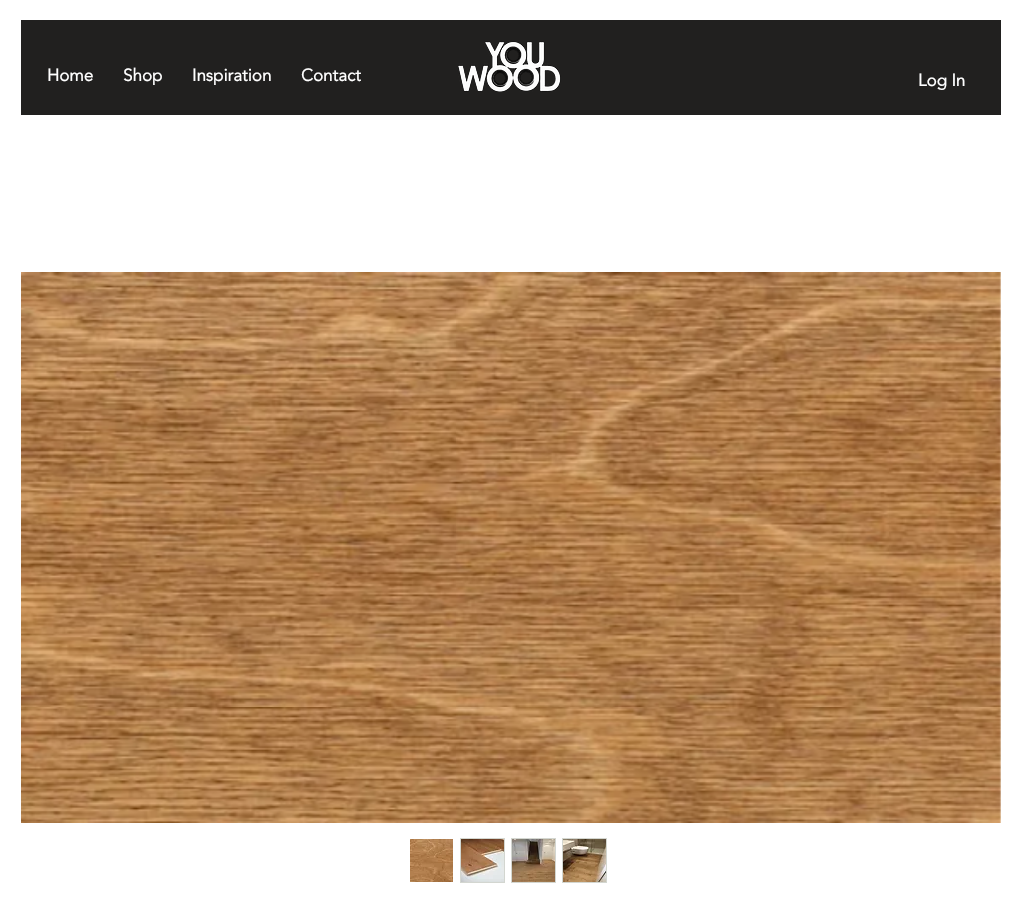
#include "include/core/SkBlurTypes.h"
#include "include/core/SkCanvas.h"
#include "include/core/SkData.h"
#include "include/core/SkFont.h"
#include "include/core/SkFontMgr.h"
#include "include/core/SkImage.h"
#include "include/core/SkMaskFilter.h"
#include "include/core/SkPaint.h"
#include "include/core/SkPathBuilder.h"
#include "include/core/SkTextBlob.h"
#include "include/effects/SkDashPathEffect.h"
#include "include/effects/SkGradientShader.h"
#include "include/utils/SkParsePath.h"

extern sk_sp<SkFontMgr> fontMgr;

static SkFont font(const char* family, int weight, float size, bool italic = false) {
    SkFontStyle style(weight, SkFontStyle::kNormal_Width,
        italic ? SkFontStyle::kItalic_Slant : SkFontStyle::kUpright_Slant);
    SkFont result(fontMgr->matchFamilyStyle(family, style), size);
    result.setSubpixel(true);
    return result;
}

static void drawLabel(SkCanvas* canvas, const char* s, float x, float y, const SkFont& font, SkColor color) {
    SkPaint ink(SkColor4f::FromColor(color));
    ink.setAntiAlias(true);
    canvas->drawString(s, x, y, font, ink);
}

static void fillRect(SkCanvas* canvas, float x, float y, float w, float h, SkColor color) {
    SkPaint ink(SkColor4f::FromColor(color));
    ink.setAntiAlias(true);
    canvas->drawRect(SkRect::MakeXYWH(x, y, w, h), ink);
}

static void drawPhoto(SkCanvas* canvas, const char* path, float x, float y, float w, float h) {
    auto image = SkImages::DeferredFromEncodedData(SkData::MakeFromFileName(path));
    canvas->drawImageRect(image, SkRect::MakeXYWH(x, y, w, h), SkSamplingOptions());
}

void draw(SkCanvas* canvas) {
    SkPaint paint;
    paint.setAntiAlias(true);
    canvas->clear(0xFFFFFFFF);
    fillRect(canvas, 21, 20, 980, 95, 0xFF21201F);
    SkFont font1 = font("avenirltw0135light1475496", 700, 17);
    drawLabel(canvas, "Home", 47, 81, font1, 0xFFFFFFFF);
    drawLabel(canvas, "Shop", 123, 81, font1, 0xFFFFFFFF);
    drawLabel(canvas, "Inspiration", 192, 81, font1, 0xFFFFFFFF);
    drawLabel(canvas, "Contact", 301, 81, font1, 0xFFFFFFFF);
    drawPhoto(canvas, "assets/img1.png", 458, 41, 103, 51);
    drawLabel(canvas, "Log In", 918, 86, font1, 0xFFFFFFFF);
    drawPhoto(canvas, "assets/img2.png", 21, 272, 980, 551);
    drawPhoto(canvas, "assets/img3.png", 410, 839, 43, 43);
    paint.setStroke(true);
    paint.setStrokeWidth(1);
    paint.setColor(0xFFD3D6D0);
    canvas->drawRect(SkRect::MakeXYWH(460.5f, 838.5f, 44, 44), paint);
    drawPhoto(canvas, "assets/img4.png", 461, 839, 43, 43);
    canvas->drawRect(SkRect::MakeXYWH(511.5f, 838.5f, 44, 44), paint);
    drawPhoto(canvas, "assets/img5.png", 512, 839, 43, 43);
    canvas->drawRect(SkRect::MakeXYWH(562.5f, 838.5f, 44, 44), paint);
    drawPhoto(canvas, "assets/img6.png", 563, 839, 43, 43);
}
